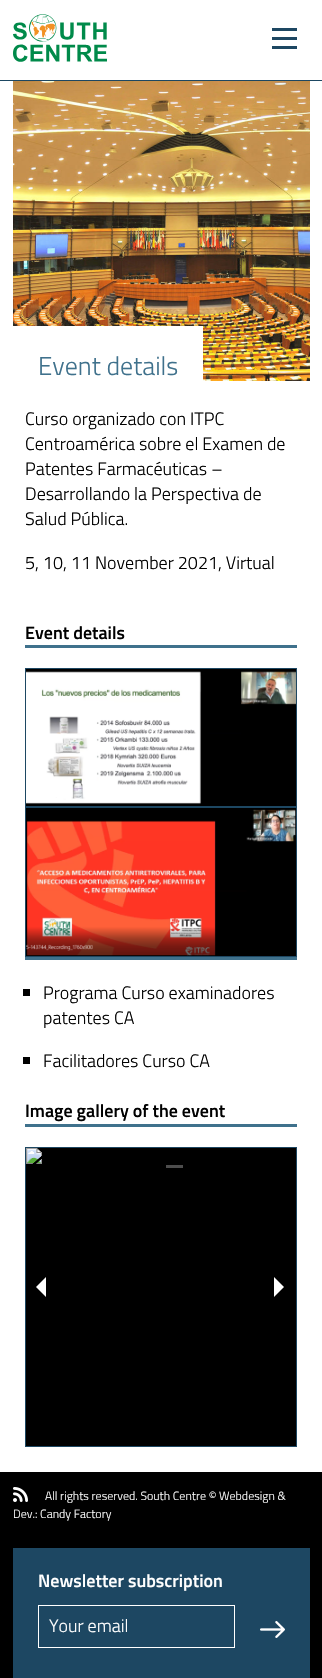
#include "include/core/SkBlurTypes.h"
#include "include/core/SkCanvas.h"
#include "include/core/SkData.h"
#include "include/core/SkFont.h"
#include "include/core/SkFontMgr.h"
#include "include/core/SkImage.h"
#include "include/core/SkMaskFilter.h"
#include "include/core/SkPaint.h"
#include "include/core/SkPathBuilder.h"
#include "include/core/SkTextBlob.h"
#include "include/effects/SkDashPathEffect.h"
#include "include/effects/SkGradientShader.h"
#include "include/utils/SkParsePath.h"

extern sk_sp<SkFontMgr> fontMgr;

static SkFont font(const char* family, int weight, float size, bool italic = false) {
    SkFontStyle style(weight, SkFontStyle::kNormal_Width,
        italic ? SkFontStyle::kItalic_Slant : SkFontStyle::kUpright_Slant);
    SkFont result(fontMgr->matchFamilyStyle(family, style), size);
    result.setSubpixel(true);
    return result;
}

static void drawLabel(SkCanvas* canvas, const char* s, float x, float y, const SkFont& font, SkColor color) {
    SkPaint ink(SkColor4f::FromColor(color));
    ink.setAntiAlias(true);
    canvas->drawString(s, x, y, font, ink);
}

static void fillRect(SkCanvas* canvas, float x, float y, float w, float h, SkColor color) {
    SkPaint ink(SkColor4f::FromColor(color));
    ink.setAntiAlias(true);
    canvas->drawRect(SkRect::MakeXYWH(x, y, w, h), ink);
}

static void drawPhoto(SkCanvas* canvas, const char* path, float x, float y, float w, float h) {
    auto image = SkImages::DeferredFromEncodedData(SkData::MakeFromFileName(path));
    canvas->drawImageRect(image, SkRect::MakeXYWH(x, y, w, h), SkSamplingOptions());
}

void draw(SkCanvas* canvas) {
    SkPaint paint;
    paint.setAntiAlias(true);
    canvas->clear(0xFFFFFFFF);
    fillRect(canvas, 0, 80, 322, 1, 0xFF1D4762);
    drawPhoto(canvas, "assets/img1.png", 13, 14, 94, 48);
    fillRect(canvas, 272, 37, 25, 3, 0xFF1D4762);
    fillRect(canvas, 272, 46, 25, 3, 0xFF1D4762);
    fillRect(canvas, 272, 28, 25, 3, 0xFF1D4762);
    drawPhoto(canvas, "assets/img2.png", 13, 81, 297, 300);
    fillRect(canvas, 13, 326, 190, 55, 0xFFFFFFFF);
    SkFont font1 = font("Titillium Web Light", 300, 26);
    drawLabel(canvas, "Event details", 38, 375, font1, 0xFF3F718C);
    SkFont font2 = font("Titillium Web Light", 300, 18);
    drawLabel(canvas, "Curso organizado con ITPC", 25, 425, font2, 0xFF000000);
    drawLabel(canvas, "Centroamérica sobre el Examen de", 25, 450, font2, 0xFF000000);
    drawLabel(canvas, "Patentes Farmacéuticas –", 25, 475, font2, 0xFF000000);
    drawLabel(canvas, "Desarrollando la Perspectiva de", 25, 500, font2, 0xFF000000);
    drawLabel(canvas, "Salud Pública.", 25, 525, font2, 0xFF000000);
    drawLabel(canvas, "5, 10, 11 November 2021, Virtual", 25, 569, font2, 0xFF000000);
    fillRect(canvas, 25, 645, 272, 3, 0xFF3F718C);
    SkFont font3 = font("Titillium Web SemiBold", 600, 18);
    drawLabel(canvas, "Event details", 25, 639, font3, 0xFF000000);
    paint.setStroke(true);
    paint.setStrokeWidth(1);
    paint.setColor(0xFF1D4762);
    canvas->drawRect(SkRect::MakeXYWH(25.5f, 668.5f, 271, 138), paint);
    drawPhoto(canvas, "assets/img3.png", 26, 669, 270, 137);
    canvas->drawRect(SkRect::MakeXYWH(25.5f, 807.5f, 271, 149), paint);
    drawPhoto(canvas, "assets/img4.png", 26, 808, 270, 148);
    fillRect(canvas, 25, 957, 272, 3, 0xFF3F718C);
    fillRect(canvas, 23, 989, 7, 7, 0xFF000000);
    drawLabel(canvas, "Programa Curso examinadores", 43, 999, font2, 0xFF000000);
    drawLabel(canvas, "patentes CA", 43, 1024, font2, 0xFF000000);
    fillRect(canvas, 23, 1057, 7, 7, 0xFF000000);
    drawLabel(canvas, "Facilitadores Curso CA", 43, 1067, font2, 0xFF000000);
    fillRect(canvas, 25, 1124, 272, 3, 0xFF3F718C);
    drawLabel(canvas, "Image gallery of the event", 25, 1117, font3, 0xFF000000);
    canvas->drawRect(SkRect::MakeXYWH(25.5f, 1147.5f, 271, 299), paint);
    drawPhoto(canvas, "assets/img5.png", 26, 1148, 270, 298);
    fillRect(canvas, 0, 1472, 322, 206, 0xFF000000);
    drawPhoto(canvas, "assets/img6.png", 13, 1487, 15, 15);
    SkFont font4 = font("Titillium Web Light", 300, 12);
    drawLabel(canvas, "All rights reserved. South Centre © Webdesign &", 45, 1500, font4, 0xFFFFFFFF);
    drawLabel(canvas, "Dev.: Candy Factory", 13, 1518, font4, 0xFFFFFFFF);
    fillRect(canvas, 13, 1548, 297, 130, 0xFF1D4762);
    drawLabel(canvas, "Newsletter subscription", 38, 1587, font3, 0xFFFFFFFF);
    paint.setColor(0xFFFFFFFF);
    canvas->drawRect(SkRect::MakeXYWH(38.5f, 1605.5f, 196, 42), paint);
    drawLabel(canvas, "Your email", 49, 1632, font2, 0xFFFFFFFF);
    drawPhoto(canvas, "assets/img7.png", 260, 1621, 25, 17);
}
